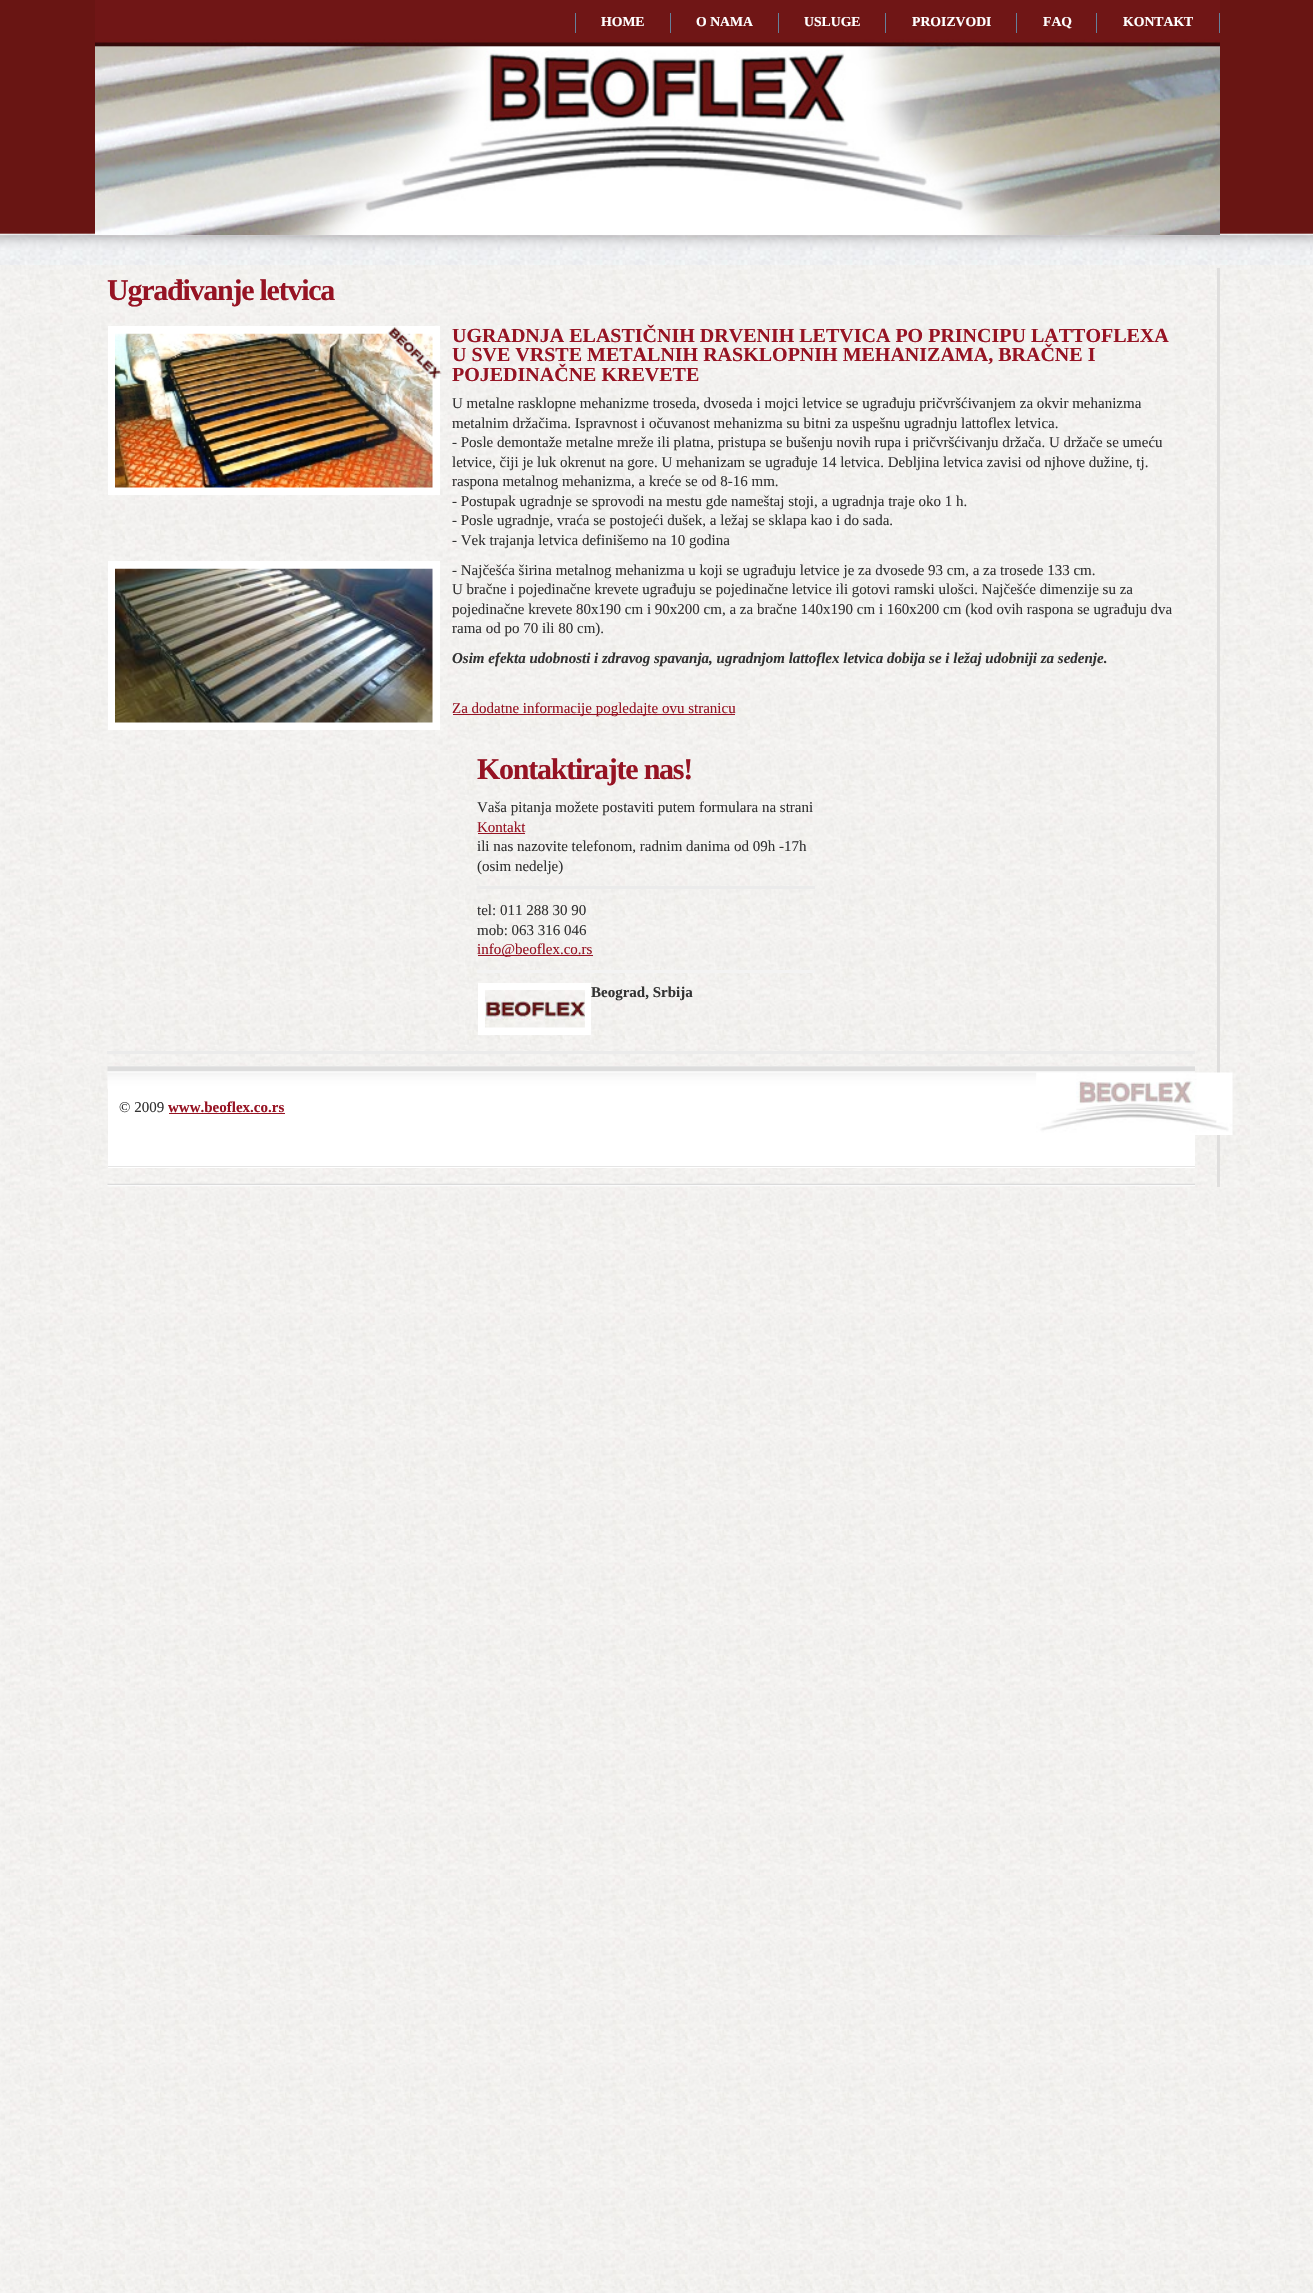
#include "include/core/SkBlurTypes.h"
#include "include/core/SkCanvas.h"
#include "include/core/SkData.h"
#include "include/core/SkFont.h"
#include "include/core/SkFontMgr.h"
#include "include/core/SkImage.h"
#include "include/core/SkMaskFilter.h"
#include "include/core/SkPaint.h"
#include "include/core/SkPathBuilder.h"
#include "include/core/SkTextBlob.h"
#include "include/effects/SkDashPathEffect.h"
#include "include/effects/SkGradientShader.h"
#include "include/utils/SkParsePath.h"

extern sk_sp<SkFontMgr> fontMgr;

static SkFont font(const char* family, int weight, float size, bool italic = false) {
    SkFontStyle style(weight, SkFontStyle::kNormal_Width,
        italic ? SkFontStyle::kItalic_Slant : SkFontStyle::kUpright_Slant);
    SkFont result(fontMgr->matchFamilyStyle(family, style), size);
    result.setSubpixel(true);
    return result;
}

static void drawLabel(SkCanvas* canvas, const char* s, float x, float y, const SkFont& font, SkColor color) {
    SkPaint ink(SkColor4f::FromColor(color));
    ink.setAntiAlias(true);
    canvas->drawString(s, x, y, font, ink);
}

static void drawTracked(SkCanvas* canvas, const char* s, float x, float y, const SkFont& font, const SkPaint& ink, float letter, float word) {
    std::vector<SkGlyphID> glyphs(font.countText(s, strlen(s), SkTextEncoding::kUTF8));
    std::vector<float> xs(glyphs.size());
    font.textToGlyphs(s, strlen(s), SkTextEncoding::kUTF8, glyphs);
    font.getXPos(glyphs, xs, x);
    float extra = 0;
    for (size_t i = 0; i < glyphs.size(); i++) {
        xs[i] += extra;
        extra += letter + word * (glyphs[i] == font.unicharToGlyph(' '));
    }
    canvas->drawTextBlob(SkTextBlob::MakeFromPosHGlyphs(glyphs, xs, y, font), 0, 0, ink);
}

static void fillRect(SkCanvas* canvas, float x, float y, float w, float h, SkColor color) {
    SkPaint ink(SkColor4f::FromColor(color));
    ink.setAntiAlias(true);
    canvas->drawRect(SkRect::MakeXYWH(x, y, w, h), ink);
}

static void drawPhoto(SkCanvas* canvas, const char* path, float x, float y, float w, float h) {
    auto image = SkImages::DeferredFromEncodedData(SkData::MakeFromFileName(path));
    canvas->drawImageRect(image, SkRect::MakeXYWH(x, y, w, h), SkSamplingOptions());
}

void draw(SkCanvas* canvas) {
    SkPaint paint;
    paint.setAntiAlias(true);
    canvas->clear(0xFFFFFFFF);
    drawPhoto(canvas, "assets/img1.png", 0, 265, 1313, 2028);
    drawPhoto(canvas, "assets/img2.png", 0, 0, 1313, 265);
    drawPhoto(canvas, "assets/img3.png", 95, 0, 1125, 235);
    fillRect(canvas, 575, 13, 1, 20, 0xFF65809A);
    fillRect(canvas, 670, 13, 1, 20, 0xFF65809A);
    SkFont font1 = font("Liberation Serif", 700, 13.75f);
    drawLabel(canvas, "HOME", 601, 26, font1, 0xFFFFFFFF);
    fillRect(canvas, 778, 13, 1, 20, 0xFF65809A);
    drawLabel(canvas, "O NAMA", 696, 26, font1, 0xFFFFFFFF);
    fillRect(canvas, 885, 13, 1, 20, 0xFF65809A);
    drawLabel(canvas, "USLUGE", 804, 26, font1, 0xFFFFFFFF);
    fillRect(canvas, 1016, 13, 1, 20, 0xFF65809A);
    drawLabel(canvas, "PROIZVODI", 912, 26, font1, 0xFFFFFFFF);
    fillRect(canvas, 1096, 13, 1, 20, 0xFF65809A);
    drawLabel(canvas, "FAQ", 1043, 26, font1, 0xFFFFFFFF);
    fillRect(canvas, 1219, 13, 1, 20, 0xFF65809A);
    drawLabel(canvas, "KONTAKT", 1123, 26, font1, 0xFFFFFFFF);
    fillRect(canvas, 1217, 268, 3, 919, 0xFFDFDEDD);
    SkFont font2 = font("Liberation Serif", 700, 30);
    paint.setColor(0xFF961323);
    drawTracked(canvas, "Ugrađivanje letvica", 107, 300, font2, paint, -1.25f, 0);
    drawPhoto(canvas, "assets/img4.png", 107, 1183, 1088, 4);
    fillRect(canvas, 108, 326, 332, 169, 0xFFFFFFFF);
    drawPhoto(canvas, "assets/img5.png", 115, 333, 318, 155);
    SkFont font3 = font("Liberation Serif", 700, 20);
    drawLabel(canvas, "UGRADNJA ELASTIČNIH DRVENIH LETVICA PO PRINCIPU LATTOFLEXA", 452, 342, font3, 0xFF961323);
    drawLabel(canvas, "U SVE VRSTE METALNIH RASKLOPNIH MEHANIZAMA, BRAČNE I", 452, 361, font3, 0xFF961323);
    drawLabel(canvas, "POJEDINAČNE KREVETE", 452, 381, font3, 0xFF961323);
    SkFont font4 = font("Liberation Serif", 400, 15);
    drawLabel(canvas, "U metalne rasklopne mehanizme troseda, dvoseda i mojci letvice se ugrađuju pričvršćivanjem za okvir mehanizma", 452, 408, font4, 0xFF333333);
    drawLabel(canvas, "metalnim držačima. Ispravnost i očuvanost mehanizma su bitni za uspešnu ugradnju lattoflex letvica.", 452, 428, font4, 0xFF333333);
    drawLabel(canvas, "- Posle demontaže metalne mreže ili platna, pristupa se bušenju novih rupa i pričvršćivanju držača. U držače se umeću", 452, 447, font4, 0xFF333333);
    drawLabel(canvas, "letvice, čiji je luk okrenut na gore. U mehanizam se ugrađuje 14 letvica. Debljina letvica zavisi od njhove dužine, tj.", 452, 467, font4, 0xFF333333);
    drawLabel(canvas, "raspona metalnog mehanizma, a kreće se od 8-16 mm.", 452, 486, font4, 0xFF333333);
    drawLabel(canvas, "- Postupak ugradnje se sprovodi na mestu gde nameštaj stoji, a ugradnja traje oko 1 h.", 452, 506, font4, 0xFF333333);
    drawLabel(canvas, "- Posle ugradnje, vraća se postojeći dušek, a ležaj se sklapa kao i do sada.", 452, 525, font4, 0xFF333333);
    drawLabel(canvas, "- Vek trajanja letvica definišemo na 10 godina", 452, 545, font4, 0xFF333333);
    drawPhoto(canvas, "assets/img6.png", 386, 326, 56, 53);
    fillRect(canvas, 107, 1051, 1088, 3, 0xFFEBEBEB);
    fillRect(canvas, 108, 561, 332, 169, 0xFFFFFFFF);
    drawPhoto(canvas, "assets/img7.png", 115, 568, 318, 155);
    drawLabel(canvas, "- Najčešća širina metalnog mehanizma u koji se ugrađuju letvice je za dvosede 93 cm, a za trosede 133 cm.", 452, 575, font4, 0xFF333333);
    drawLabel(canvas, "U bračne i pojedinačne krevete ugrađuju se pojedinačne letvice ili gotovi ramski ulošci. Najčešće dimenzije su za", 452, 594, font4, 0xFF333333);
    drawLabel(canvas, "pojedinačne krevete 80x190 cm i 90x200 cm, a za bračne 140x190 cm i 160x200 cm (kod ovih raspona se ugrađuju dva", 452, 614, font4, 0xFF333333);
    drawLabel(canvas, "rama od po 70 ili 80 cm).", 452, 633, font4, 0xFF333333);
    SkFont font5 = font("Liberation Serif", 700, 15, true);
    drawLabel(canvas, "Osim efekta udobnosti i zdravog spavanja, ugradnjom lattoflex letvica dobija se i ležaj udobniji za sedenje.", 452, 663, font5, 0xFF333333);
    fillRect(canvas, 453, 714, 282, 1, 0xFF961323);
    drawLabel(canvas, "Za dodatne informacije pogledajte ovu stranicu", 452, 713, font4, 0xFF961323);
    drawTracked(canvas, "Kontaktirajte nas!", 477, 779, font2, paint, -1.25f, 0);
    fillRect(canvas, 477, 886, 338, 3, 0xFFEBEBEB);
    drawLabel(canvas, "Vaša pitanja možete postaviti putem formulara na strani", 477, 812, font4, 0xFF333333);
    drawLabel(canvas, "Kontakt", 477, 832, font4, 0xFF961323);
    fillRect(canvas, 478, 833, 47, 1, 0xFF961323);
    drawLabel(canvas, "ili nas nazovite telefonom, radnim danima od 09h -17h", 477, 851, font4, 0xFF333333);
    drawLabel(canvas, "(osim nedelje)", 477, 871, font4, 0xFF333333);
    fillRect(canvas, 477, 970, 338, 3, 0xFFF3F3F3);
    drawLabel(canvas, "tel: 011 288 30 90", 477, 915, font4, 0xFF333333);
    drawLabel(canvas, "mob: 063 316 046", 477, 935, font4, 0xFF333333);
    fillRect(canvas, 478, 955, 115, 1, 0xFF961323);
    drawLabel(canvas, "info@beoflex.co.rs", 477, 954, font4, 0xFF961323);
    fillRect(canvas, 478, 983, 113, 52, 0xFFFFFFFF);
    drawPhoto(canvas, "assets/img8.png", 485, 990, 100, 38);
    SkFont font6 = font("Liberation Serif", 700, 15);
    drawLabel(canvas, "Beograd, Srbija", 591, 997, font6, 0xFF333333);
    fillRect(canvas, 108, 1066, 1087, 102, 0xFFFFFFFF);
    drawPhoto(canvas, "assets/img9.png", 107, 1066, 1088, 23);
    fillRect(canvas, 108, 1166, 1087, 1, 0xFFE5E5E5);
    drawPhoto(canvas, "assets/img10.png", 1036, 1072, 197, 63);
    drawLabel(canvas, "© 2009", 119, 1112, font4, 0xFF333333);
    drawLabel(canvas, "www.beoflex.co.rs", 168, 1112, font6, 0xFF961323);
    fillRect(canvas, 169, 1113, 116, 1, 0xFF961323);
}
